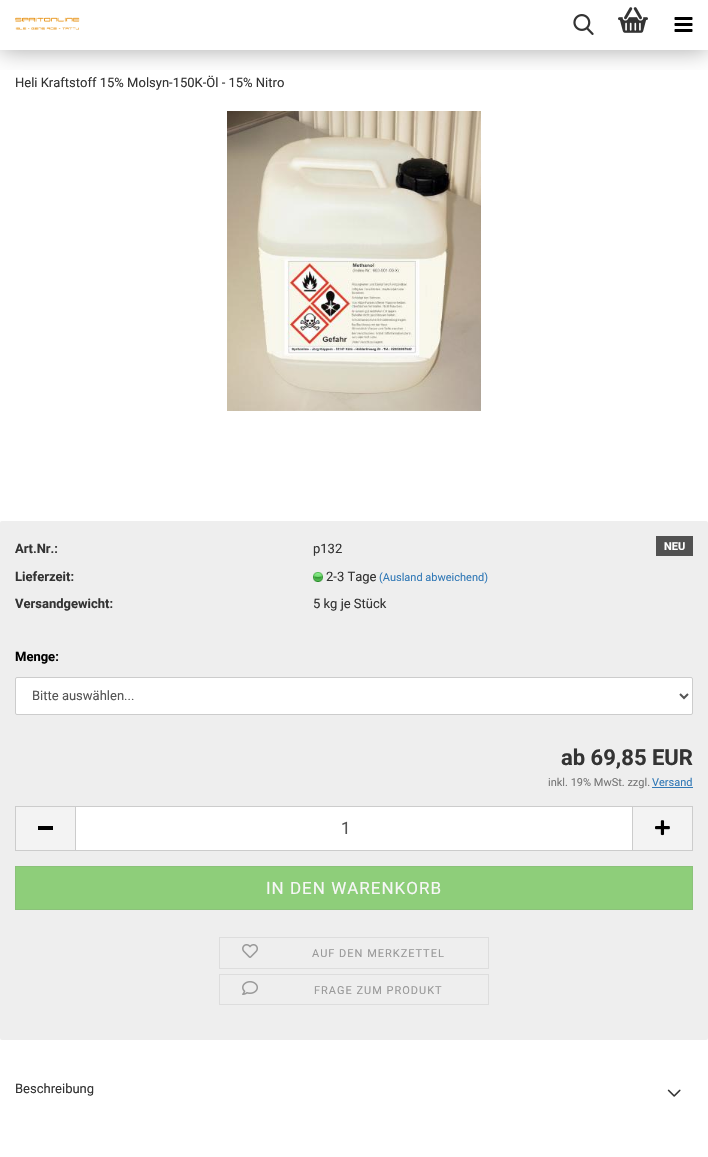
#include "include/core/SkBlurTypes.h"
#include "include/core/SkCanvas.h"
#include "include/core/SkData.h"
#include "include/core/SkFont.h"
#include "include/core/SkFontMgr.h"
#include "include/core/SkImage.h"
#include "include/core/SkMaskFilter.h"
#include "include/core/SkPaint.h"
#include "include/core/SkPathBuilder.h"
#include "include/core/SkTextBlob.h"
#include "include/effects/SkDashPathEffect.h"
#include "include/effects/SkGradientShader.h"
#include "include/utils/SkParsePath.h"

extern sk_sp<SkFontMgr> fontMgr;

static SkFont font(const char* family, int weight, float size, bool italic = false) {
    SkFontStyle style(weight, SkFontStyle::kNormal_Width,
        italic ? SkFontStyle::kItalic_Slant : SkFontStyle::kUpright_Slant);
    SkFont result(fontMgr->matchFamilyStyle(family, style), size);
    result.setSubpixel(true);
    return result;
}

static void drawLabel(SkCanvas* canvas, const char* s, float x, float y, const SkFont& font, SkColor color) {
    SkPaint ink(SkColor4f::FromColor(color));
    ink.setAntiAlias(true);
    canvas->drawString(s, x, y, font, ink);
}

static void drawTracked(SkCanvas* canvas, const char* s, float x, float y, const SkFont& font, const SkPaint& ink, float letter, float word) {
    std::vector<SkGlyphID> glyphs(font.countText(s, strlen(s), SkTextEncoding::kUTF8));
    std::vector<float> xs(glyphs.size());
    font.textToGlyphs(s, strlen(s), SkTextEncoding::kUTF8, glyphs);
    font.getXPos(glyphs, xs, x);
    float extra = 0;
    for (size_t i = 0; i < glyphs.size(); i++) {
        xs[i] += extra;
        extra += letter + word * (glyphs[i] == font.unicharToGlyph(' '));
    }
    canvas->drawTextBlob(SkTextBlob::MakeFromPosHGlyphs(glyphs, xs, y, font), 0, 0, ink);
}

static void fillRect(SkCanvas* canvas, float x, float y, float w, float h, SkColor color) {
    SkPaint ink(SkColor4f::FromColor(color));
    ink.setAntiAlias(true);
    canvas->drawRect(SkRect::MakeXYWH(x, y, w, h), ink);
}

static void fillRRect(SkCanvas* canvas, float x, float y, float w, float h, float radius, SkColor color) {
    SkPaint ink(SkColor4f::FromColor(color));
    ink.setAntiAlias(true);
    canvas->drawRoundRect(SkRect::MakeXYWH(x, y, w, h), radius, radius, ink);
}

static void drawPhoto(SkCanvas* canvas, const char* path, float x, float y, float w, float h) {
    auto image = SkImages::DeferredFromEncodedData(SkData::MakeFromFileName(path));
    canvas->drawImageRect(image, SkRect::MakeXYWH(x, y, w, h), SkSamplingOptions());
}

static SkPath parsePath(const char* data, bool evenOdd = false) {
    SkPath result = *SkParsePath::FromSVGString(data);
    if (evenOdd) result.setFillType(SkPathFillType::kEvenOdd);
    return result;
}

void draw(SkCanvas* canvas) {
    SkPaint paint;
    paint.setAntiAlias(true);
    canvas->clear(0xFFFFFFFF);
    canvas->save();
    canvas->clipRect(SkRect::MakeXYWH(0, 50, 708, 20));
    paint.setColor(0x59000000);
    paint.setMaskFilter(SkMaskFilter::MakeBlur(kNormal_SkBlurStyle, 12.5f));
    canvas->drawRect(SkRect::MakeXYWH(0, 0, 708, 50), paint);
    paint.setMaskFilter(nullptr);
    canvas->restore();
    drawPhoto(canvas, "assets/img1.png", 15, 17, 65, 13);
    drawPhoto(canvas, "assets/img2.png", 573, 14, 21, 21);
    drawPhoto(canvas, "assets/img3.png", 618, 7, 30, 26);
    drawPhoto(canvas, "assets/img4.png", 674, 17, 19, 15);
    SkFont font1 = font("Roboto", 400, 13);
    drawLabel(canvas, "Heli Kraftstoff 15% Molsyn-150K-Öl - 15% Nitro", 15, 87, font1, 0xFF333333);
    drawPhoto(canvas, "assets/img5.png", 227, 111, 254, 300);
    fillRRect(canvas, 0, 521, 708, 519, 2, 0xFFEEEEEE);
    fillRect(canvas, 656, 536, 37, 20, 0xFF515151);
    SkFont font2 = font("Roboto", 700, 11);
    drawLabel(canvas, "NEU", 664, 550, font2, 0xFFFFFFFF);
    SkFont font3 = font("Roboto", 700, 13);
    drawLabel(canvas, "Art.Nr.:", 15, 553, font3, 0xFF333333);
    drawLabel(canvas, "p132", 313, 553, font1, 0xFF333333);
    drawLabel(canvas, "Lieferzeit:", 15, 581, font3, 0xFF333333);
    drawPhoto(canvas, "assets/img6.png", 313, 572, 10, 10);
    drawLabel(canvas, "2-3 Tage", 326, 581, font1, 0xFF333333);
    SkFont font4 = font("Roboto", 400, 11);
    drawLabel(canvas, "(Ausland abweichend)", 379, 581, font4, 0xFF337AB7);
    drawLabel(canvas, "Versandgewicht:", 15, 608, font3, 0xFF333333);
    drawLabel(canvas, "5 kg je Stück", 313, 608, font1, 0xFF333333);
    drawLabel(canvas, "Menge:", 15, 661, font3, 0xFF000000);
    paint.setColor(0xFFFFFFFF);
    canvas->drawRoundRect(SkRect::MakeXYWH(15.5f, 677.5f, 677, 37), 1.5f, 1.5f, paint);
    paint.setStroke(true);
    paint.setStrokeWidth(1);
    paint.setColor(0xFFCCCCCC);
    canvas->drawRoundRect(SkRect::MakeXYWH(15.5f, 677.5f, 677, 37), 1.5f, 1.5f, paint);
    paint.setStrokeWidth(2);
    paint.setColor(0xFF555555);
    canvas->drawPath(parsePath("M680 694L684 698L688 694"), paint);
    drawLabel(canvas, "Bitte auswählen...", 32, 700, font1, 0xFF555555);
    SkFont font5 = font("Roboto", 700, 22);
    drawLabel(canvas, "ab 69,85 EUR", 561, 765, font5, 0xFF333333);
    drawLabel(canvas, "inkl. 19% MwSt. zzgl.", 548, 786, font4, 0xFF777777);
    drawLabel(canvas, "Versand", 652, 786, font4, 0xFF337AB7);
    fillRect(canvas, 652, 787, 41, 1, 0xFF337AB7);
    fillRect(canvas, 16, 807, 59, 43, 0xFFF3F3F3);
    fillRect(canvas, 15, 806, 60, 1, 0xFFCCCCCC);
    fillRect(canvas, 15, 850, 60, 1, 0xFFCCCCCC);
    fillRect(canvas, 15, 806, 1, 45, 0xFFCCCCCC);
    fillRect(canvas, 38, 826, 15, 4, 0xFF000000);
    paint.setStroke(false);
    paint.setColor(0xFFFFFFFF);
    canvas->drawRect(SkRect::MakeXYWH(75.5f, 806.5f, 557, 44), paint);
    paint.setStroke(true);
    paint.setStrokeWidth(1);
    paint.setColor(0xFFCCCCCC);
    canvas->drawRect(SkRect::MakeXYWH(75.5f, 806.5f, 557, 44), paint);
    SkFont font6 = font("Roboto", 400, 17);
    drawLabel(canvas, "1", 341, 834, font6, 0xFF555555);
    fillRect(canvas, 633, 807, 59, 43, 0xFFF3F3F3);
    fillRect(canvas, 633, 806, 60, 1, 0xFFCCCCCC);
    fillRect(canvas, 692, 806, 1, 45, 0xFFCCCCCC);
    fillRect(canvas, 633, 850, 60, 1, 0xFFCCCCCC);
    drawPhoto(canvas, "assets/img7.png", 655, 820, 15, 16);
    paint.setStroke(false);
    paint.setColor(0xFF8ECE7A);
    canvas->drawRect(SkRect::MakeXYWH(15.5f, 866.5f, 677, 43), paint);
    paint.setStroke(true);
    paint.setColor(0xFF8BC27A);
    canvas->drawRect(SkRect::MakeXYWH(15.5f, 866.5f, 677, 43), paint);
    paint.setStroke(false);
    paint.setColor(0xFFF7F7F7);
    drawTracked(canvas, "IN DEN WARENKORB", 266, 894, font6, paint, 1, 0);
    paint.setStroke(true);
    paint.setColor(0xFFDDDDDD);
    canvas->drawRect(SkRect::MakeXYWH(219.5f, 937.5f, 269, 31), paint);
    drawPhoto(canvas, "assets/img8.png", 242, 944, 16, 14);
    paint.setStroke(false);
    paint.setColor(0xFF999999);
    drawTracked(canvas, "AUF DEN MERKZETTEL", 312, 957, font4, paint, 1, 0);
    paint.setStroke(true);
    paint.setColor(0xFFDDDDDD);
    canvas->drawRect(SkRect::MakeXYWH(219.5f, 974.5f, 269, 30), paint);
    drawPhoto(canvas, "assets/img9.png", 242, 981, 16, 14);
    paint.setStroke(false);
    paint.setColor(0xFF999999);
    drawTracked(canvas, "FRAGE ZUM PRODUKT", 314, 994, font4, paint, 1, 0);
    drawLabel(canvas, "Beschreibung", 15, 1093, font1, 0xFF333333);
    drawPhoto(canvas, "assets/img10.png", 667, 1089, 14, 8);
}
